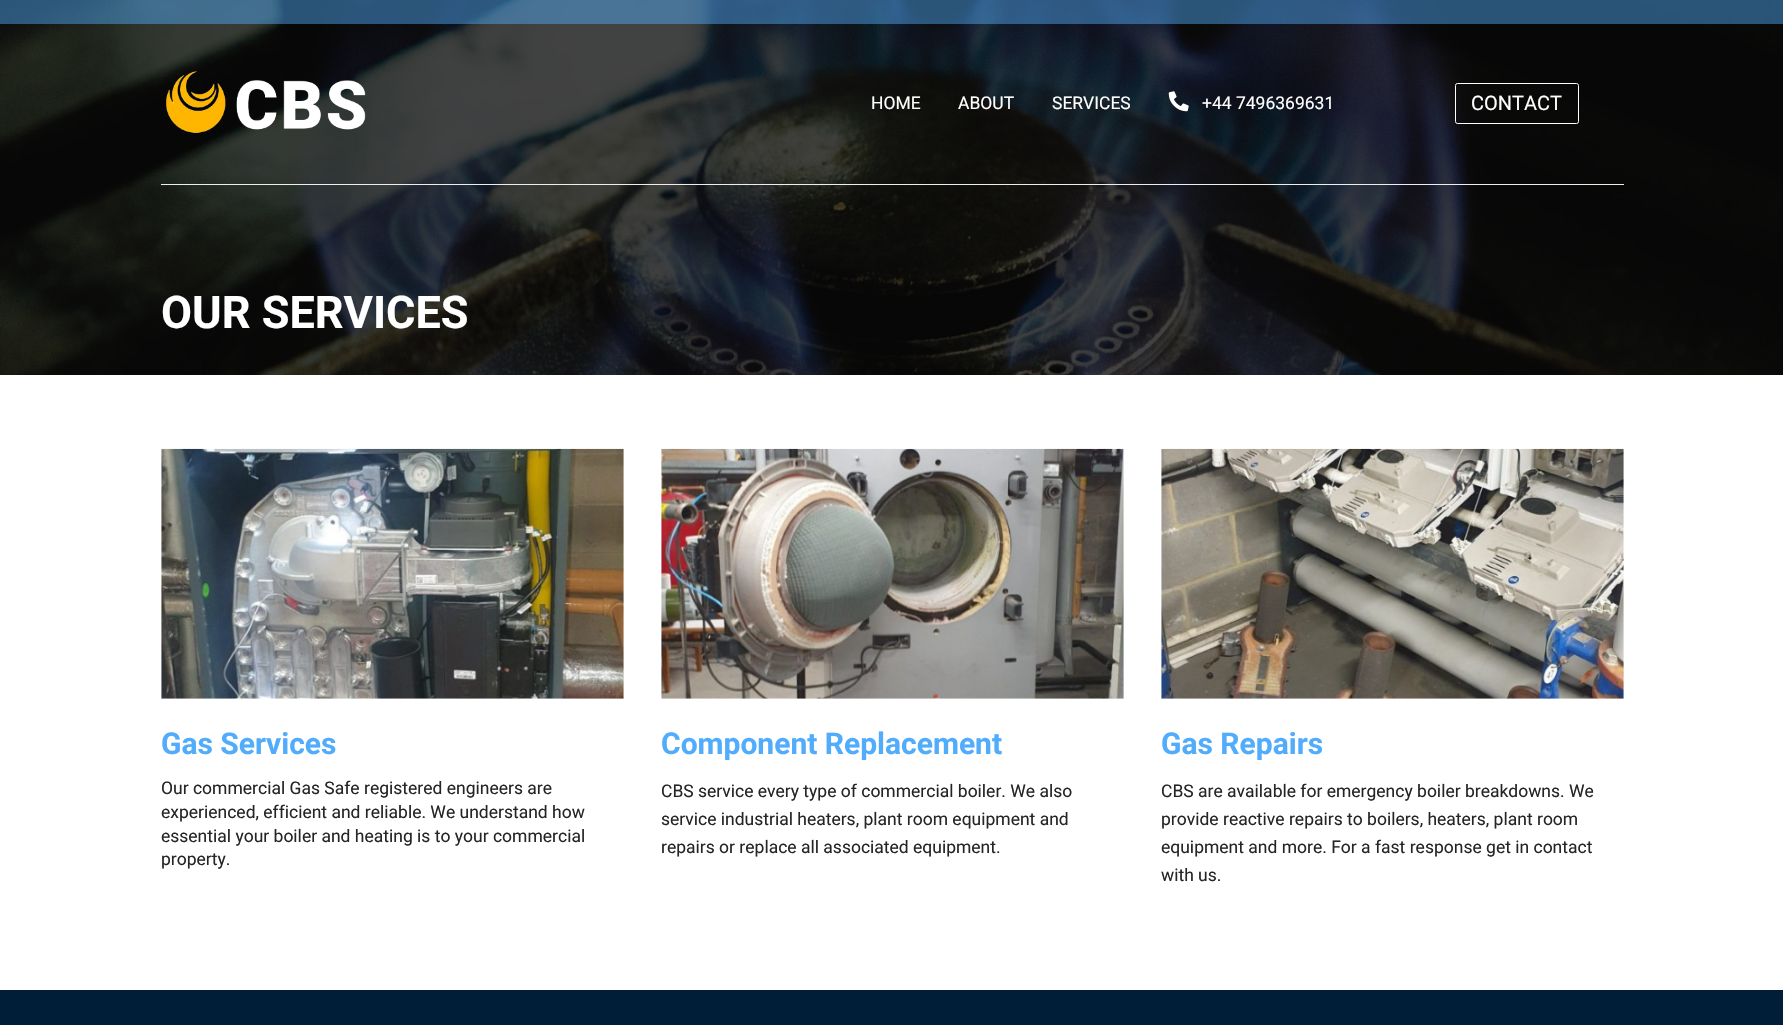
#include "include/core/SkBlurTypes.h"
#include "include/core/SkCanvas.h"
#include "include/core/SkData.h"
#include "include/core/SkFont.h"
#include "include/core/SkFontMgr.h"
#include "include/core/SkImage.h"
#include "include/core/SkMaskFilter.h"
#include "include/core/SkPaint.h"
#include "include/core/SkPathBuilder.h"
#include "include/core/SkTextBlob.h"
#include "include/effects/SkDashPathEffect.h"
#include "include/effects/SkGradientShader.h"
#include "include/utils/SkParsePath.h"

extern sk_sp<SkFontMgr> fontMgr;

static SkFont font(const char* family, int weight, float size, bool italic = false) {
    SkFontStyle style(weight, SkFontStyle::kNormal_Width,
        italic ? SkFontStyle::kItalic_Slant : SkFontStyle::kUpright_Slant);
    SkFont result(fontMgr->matchFamilyStyle(family, style), size);
    result.setSubpixel(true);
    return result;
}

static void drawLabel(SkCanvas* canvas, const char* s, float x, float y, const SkFont& font, SkColor color) {
    SkPaint ink(SkColor4f::FromColor(color));
    ink.setAntiAlias(true);
    canvas->drawString(s, x, y, font, ink);
}

static void fillRect(SkCanvas* canvas, float x, float y, float w, float h, SkColor color) {
    SkPaint ink(SkColor4f::FromColor(color));
    ink.setAntiAlias(true);
    canvas->drawRect(SkRect::MakeXYWH(x, y, w, h), ink);
}

static void drawPhoto(SkCanvas* canvas, const char* path, float x, float y, float w, float h) {
    auto image = SkImages::DeferredFromEncodedData(SkData::MakeFromFileName(path));
    canvas->drawImageRect(image, SkRect::MakeXYWH(x, y, w, h), SkSamplingOptions());
}

void draw(SkCanvas* canvas) {
    SkPaint paint;
    paint.setAntiAlias(true);
    canvas->clear(0xFFFFFFFF);
    drawPhoto(canvas, "assets/img3.png", 0, 0, 1783, 375);
    fillRect(canvas, 0, 0, 1783, 24, 0x7551ACFB);
    drawPhoto(canvas, "assets/img1.png", 166, 71, 200, 62);
    SkFont font1 = font("Roboto", 400, 17.5f);
    drawLabel(canvas, "HOME", 871, 109, font1, 0xFFFFFFFF);
    drawLabel(canvas, "ABOUT", 958, 109, font1, 0xFFFFFFFF);
    drawLabel(canvas, "SERVICES", 1052, 109, font1, 0xFFFFFFFF);
    drawPhoto(canvas, "assets/img2.png", 1168, 91, 21, 21);
    drawLabel(canvas, "+44 7496369631", 1202, 109, font1, 0xFFFFFFFF);
    paint.setStroke(true);
    paint.setStrokeWidth(1);
    paint.setColor(0xFFFFFFFF);
    canvas->drawRoundRect(SkRect::MakeXYWH(1455.5f, 83.5f, 123, 40), 2, 2, paint);
    SkFont font2 = font("Roboto", 400, 20);
    drawLabel(canvas, "CONTACT", 1471, 110, font2, 0xFFFFFFFF);
    fillRect(canvas, 161, 184, 1463, 1, 0xFFEEEEEE);
    SkFont font3 = font("Roboto", 700, 45);
    drawLabel(canvas, "OUR SERVICES", 161, 328, font3, 0xFFFFFFFF);
    drawPhoto(canvas, "assets/img4.png", 161, 448, 463, 251);
    SkFont font4 = font("Roboto", 700, 30);
    drawLabel(canvas, "Gas Services", 161, 754, font4, 0xFF51ACFB);
    drawLabel(canvas, "Our commercial Gas Safe registered engineers are", 161, 794, font1, 0xFF252525);
    drawLabel(canvas, "experienced, efficient and reliable. We understand how", 161, 818, font1, 0xFF252525);
    drawLabel(canvas, "essential your boiler and heating is to your commercial", 161, 842, font1, 0xFF252525);
    drawLabel(canvas, "property.", 161, 865, font1, 0xFF252525);
    drawPhoto(canvas, "assets/img5.png", 661, 448, 463, 251);
    drawLabel(canvas, "Component Replacement", 661, 754, font4, 0xFF51ACFB);
    drawLabel(canvas, "CBS service every type of commercial boiler. We also", 661, 797, font1, 0xFF252525);
    drawLabel(canvas, "service industrial heaters, plant room equipment and", 661, 825, font1, 0xFF252525);
    drawLabel(canvas, "repairs or replace all associated equipment.", 661, 853, font1, 0xFF252525);
    drawPhoto(canvas, "assets/img6.png", 1161, 448, 463, 251);
    drawLabel(canvas, "Gas Repairs", 1161, 754, font4, 0xFF51ACFB);
    drawLabel(canvas, "CBS are available for emergency boiler breakdowns. We", 1161, 797, font1, 0xFF252525);
    drawLabel(canvas, "provide reactive repairs to boilers, heaters, plant room", 1161, 825, font1, 0xFF252525);
    drawLabel(canvas, "equipment and more. For a fast response get in contact", 1161, 853, font1, 0xFF252525);
    drawLabel(canvas, "with us.", 1161, 881, font1, 0xFF252525);
    fillRect(canvas, 0, 990, 1783, 35, 0xFF001E38);
}
